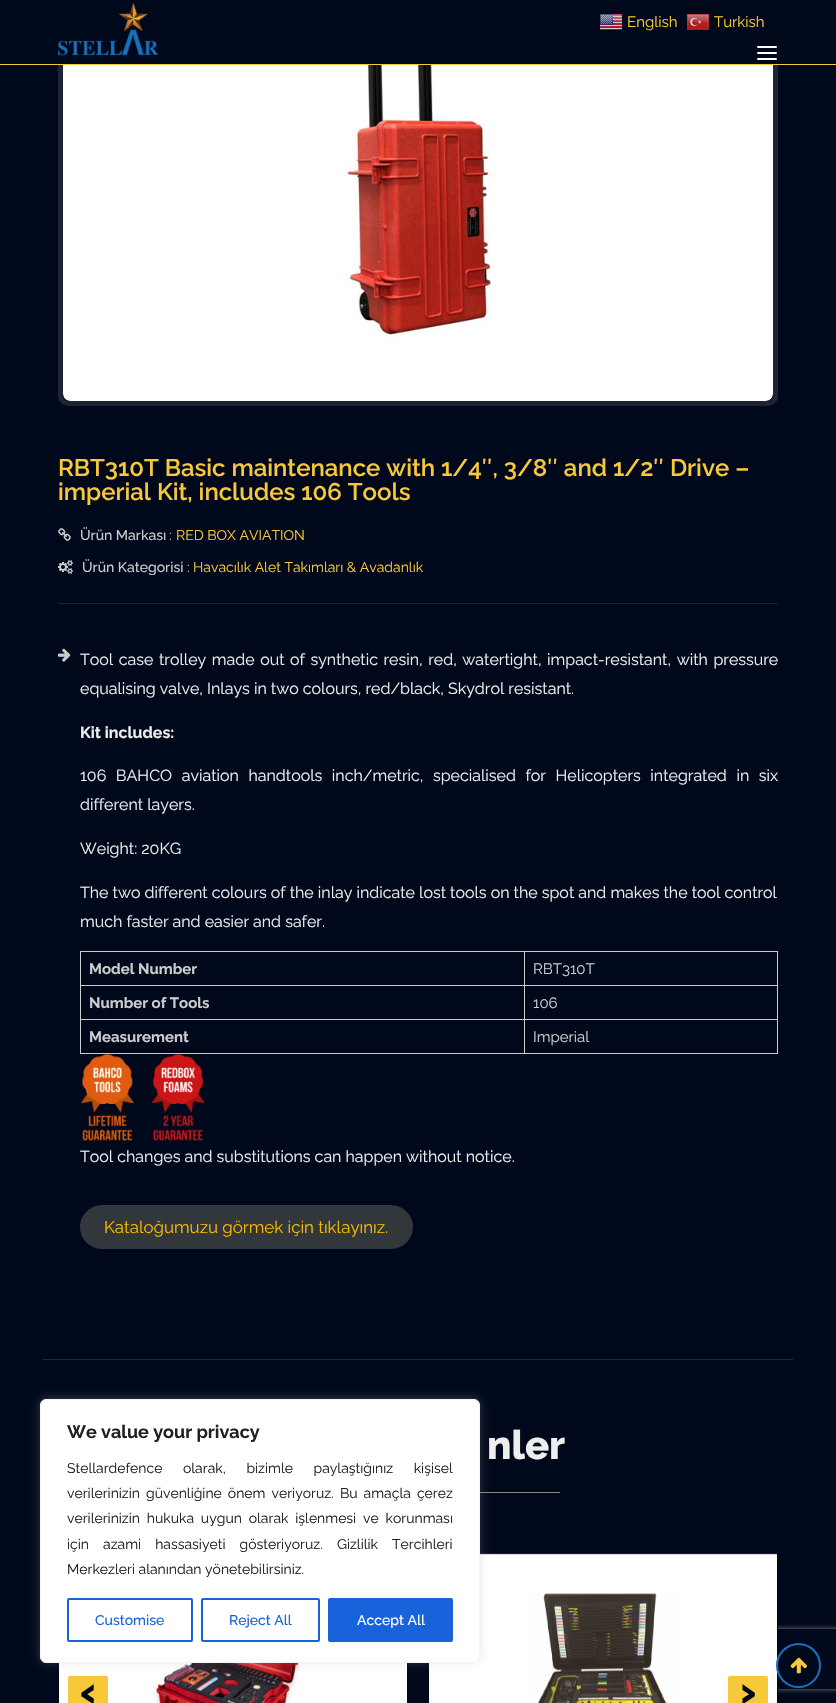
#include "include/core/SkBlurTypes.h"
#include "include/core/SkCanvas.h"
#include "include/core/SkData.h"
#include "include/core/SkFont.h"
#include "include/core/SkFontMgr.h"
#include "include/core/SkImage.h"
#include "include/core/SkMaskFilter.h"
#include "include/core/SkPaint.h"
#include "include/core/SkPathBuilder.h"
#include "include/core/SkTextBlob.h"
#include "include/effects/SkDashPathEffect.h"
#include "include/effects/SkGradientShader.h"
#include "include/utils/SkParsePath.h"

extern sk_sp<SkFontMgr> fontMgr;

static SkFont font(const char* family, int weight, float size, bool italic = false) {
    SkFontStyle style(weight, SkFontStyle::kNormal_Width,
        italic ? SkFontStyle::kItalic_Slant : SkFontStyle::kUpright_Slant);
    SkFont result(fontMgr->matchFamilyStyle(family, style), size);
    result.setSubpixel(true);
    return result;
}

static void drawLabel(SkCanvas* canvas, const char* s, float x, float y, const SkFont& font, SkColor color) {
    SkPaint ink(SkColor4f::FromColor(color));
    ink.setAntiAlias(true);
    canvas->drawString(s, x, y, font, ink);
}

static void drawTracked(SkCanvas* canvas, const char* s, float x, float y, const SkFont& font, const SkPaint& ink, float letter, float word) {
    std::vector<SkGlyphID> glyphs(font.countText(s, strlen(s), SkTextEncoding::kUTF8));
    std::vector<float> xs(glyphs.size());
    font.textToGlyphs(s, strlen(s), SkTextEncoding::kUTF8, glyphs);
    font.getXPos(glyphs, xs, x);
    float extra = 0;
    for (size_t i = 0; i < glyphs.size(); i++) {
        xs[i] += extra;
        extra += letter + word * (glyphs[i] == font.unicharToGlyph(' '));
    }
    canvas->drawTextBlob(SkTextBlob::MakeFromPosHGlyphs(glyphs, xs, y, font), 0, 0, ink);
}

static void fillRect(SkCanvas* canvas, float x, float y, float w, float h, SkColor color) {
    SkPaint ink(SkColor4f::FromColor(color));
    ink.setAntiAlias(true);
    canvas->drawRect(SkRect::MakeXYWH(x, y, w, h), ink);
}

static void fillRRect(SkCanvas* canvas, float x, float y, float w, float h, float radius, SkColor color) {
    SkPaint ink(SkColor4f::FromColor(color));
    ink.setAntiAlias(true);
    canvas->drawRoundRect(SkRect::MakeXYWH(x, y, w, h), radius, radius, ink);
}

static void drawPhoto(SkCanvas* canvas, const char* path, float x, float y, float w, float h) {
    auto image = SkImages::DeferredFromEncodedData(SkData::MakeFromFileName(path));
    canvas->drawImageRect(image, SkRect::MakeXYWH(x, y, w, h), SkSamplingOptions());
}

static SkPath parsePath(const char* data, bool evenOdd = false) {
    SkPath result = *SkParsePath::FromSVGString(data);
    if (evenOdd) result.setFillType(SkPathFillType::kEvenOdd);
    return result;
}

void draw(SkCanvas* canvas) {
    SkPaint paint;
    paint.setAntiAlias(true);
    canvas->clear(0xFF00081B);
    paint.setStroke(true);
    paint.setStrokeWidth(5);
    paint.setColor(0xFF1D2436);
    canvas->drawRoundRect(SkRect::MakeXYWH(60.5f, -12.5f, 715, 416), 7.5f, 7.5f, paint);
    fillRect(canvas, 58, 0, 720, 64, 0xFF00081B);
    drawPhoto(canvas, "assets/img1.png", 600, 14, 22, 17);
    SkFont font1 = font("Raleway", 400, 15);
    drawLabel(canvas, "English", 627, 27, font1, 0xFFF7C839);
    drawPhoto(canvas, "assets/img2.png", 687, 14, 22, 17);
    drawLabel(canvas, "Turkish", 714, 27, font1, 0xFFF7C839);
    fillRect(canvas, 0, 64, 836, 1, 0xFFF7C839);
    drawPhoto(canvas, "assets/img3.png", 58, 3, 100, 53);
    fillRRect(canvas, 757, 46, 20, 2, 1, 0xFFFFFFFF);
    fillRRect(canvas, 757, 52, 20, 2, 1, 0xFFFFFFFF);
    fillRRect(canvas, 757, 58, 20, 2, 1, 0xFFFFFFFF);
    drawPhoto(canvas, "assets/img4.png", 63, 65, 710, 336);
    SkFont font2 = font("Raleway", 600, 24);
    drawLabel(canvas, "RBT310T Basic maintenance with 1/4″, 3/8″ and 1/2″ Drive –", 58, 476, font2, 0xFFF7C839);
    drawLabel(canvas, "imperial Kit, includes 106 Tools", 58, 500, font2, 0xFFF7C839);
    drawPhoto(canvas, "assets/img5.png", 58, 528, 13, 13);
    SkFont font3 = font("Raleway", 500, 14);
    drawLabel(canvas, "Ürün Markası", 80, 540, font3, 0xFFCCCCCC);
    SkFont font4 = font("Raleway", 400, 14);
    drawLabel(canvas, ":", 169, 540, font4, 0xFFCCCCCC);
    drawLabel(canvas, "RED BOX AVIATION", 176, 540, font4, 0xFFF7C839);
    drawPhoto(canvas, "assets/img6.png", 58, 560, 15, 14);
    drawLabel(canvas, "Ürün Kategorisi", 82, 572, font3, 0xFFCCCCCC);
    drawLabel(canvas, ":", 187, 572, font4, 0xFFCCCCCC);
    drawLabel(canvas, "Havacılık Alet Takımları & Avadanlık", 193, 572, font4, 0xFFF7C839);
    fillRect(canvas, 58, 603, 720, 1, 0xFF1D2436);
    drawPhoto(canvas, "assets/img7.png", 58, 648, 13, 14);
    SkFont font5 = font("Raleway", 400, 16);
    paint.setStroke(false);
    paint.setColor(0xFFEEEEEE);
    drawTracked(canvas, "Tool case trolley made out of synthetic resin, red, watertight, impact-resistant, with pressure", 80, 665, font5, paint, 0, 1.5f);
    drawLabel(canvas, "equalising valve, Inlays in two colours, red/black, Skydrol resistant.", 80, 694, font5, 0xFFEEEEEE);
    SkFont font6 = font("Raleway", 700, 16);
    drawLabel(canvas, "Kit includes:", 80, 738, font6, 0xFFEEEEEE);
    drawTracked(canvas, "106 BAHCO aviation handtools inch/metric, specialised for Helicopters integrated in six", 80, 781, font5, paint, 0, 5.5f);
    drawLabel(canvas, "different layers.", 80, 810, font5, 0xFFEEEEEE);
    drawLabel(canvas, "Weight: 20KG", 80, 854, font5, 0xFFEEEEEE);
    drawLabel(canvas, "The two different colours of the inlay indicate lost tools on the spot and makes the tool control", 80, 898, font5, 0xFFEEEEEE);
    drawLabel(canvas, "much faster and easier and safer.", 80, 927, font5, 0xFFEEEEEE);
    fillRect(canvas, 524, 951, 254, 1, 0xFFCCCCCC);
    fillRect(canvas, 524, 985, 254, 1, 0xFFCCCCCC);
    fillRect(canvas, 524, 1019, 254, 1, 0xFFCCCCCC);
    fillRect(canvas, 777, 1019, 1, 35, 0xFFCCCCCC);
    fillRect(canvas, 524, 1053, 254, 1, 0xFFCCCCCC);
    fillRect(canvas, 524, 1019, 1, 35, 0xFFCCCCCC);
    fillRect(canvas, 80, 1019, 445, 1, 0xFFCCCCCC);
    fillRect(canvas, 524, 985, 1, 35, 0xFFCCCCCC);
    fillRect(canvas, 80, 985, 445, 1, 0xFFCCCCCC);
    fillRect(canvas, 524, 951, 1, 35, 0xFFCCCCCC);
    fillRect(canvas, 80, 951, 445, 1, 0xFFCCCCCC);
    fillRect(canvas, 80, 1053, 445, 1, 0xFFCCCCCC);
    fillRect(canvas, 80, 1019, 1, 35, 0xFFCCCCCC);
    fillRect(canvas, 80, 985, 1, 35, 0xFFCCCCCC);
    fillRect(canvas, 80, 951, 1, 35, 0xFFCCCCCC);
    SkFont font7 = font("Raleway", 700, 15);
    drawLabel(canvas, "Model Number", 89, 974, font7, 0xFFCCCCCC);
    fillRect(canvas, 777, 985, 1, 35, 0xFFCCCCCC);
    fillRect(canvas, 777, 951, 1, 35, 0xFFCCCCCC);
    drawLabel(canvas, "RBT310T", 533, 974, font1, 0xFFCCCCCC);
    drawLabel(canvas, "Number of Tools", 89, 1008, font7, 0xFFCCCCCC);
    drawLabel(canvas, "106", 533, 1008, font1, 0xFFCCCCCC);
    drawLabel(canvas, "Measurement", 89, 1042, font7, 0xFFCCCCCC);
    drawLabel(canvas, "Imperial", 533, 1042, font1, 0xFFCCCCCC);
    drawPhoto(canvas, "assets/img8.png", 81, 1054, 124, 87);
    drawLabel(canvas, "Tool changes and substitutions can happen without notice.", 80, 1162, font5, 0xFFEEEEEE);
    fillRRect(canvas, 80, 1205, 333, 44, 22, 0xFF32373C);
    SkFont font8 = font("Raleway", 400, 16.9f);
    drawLabel(canvas, "Kataloğumuzu görmek için tıklayınız.", 104, 1233, font8, 0xFFFCB900);
    fillRect(canvas, 43, 1359, 750, 1, 0xFF212839);
    SkFont font9 = font("Raleway", 800, 40);
    drawLabel(canvas, "nler", 487, 1459, font9, 0xFFEEEEEE);
    fillRect(canvas, 480, 1492, 80, 1, 0xFF888888);
    drawPhoto(canvas, "assets/img9.png", 59, 1663, 348, 40);
    canvas->save();
    canvas->clipPath(parsePath("M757 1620H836V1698H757ZM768 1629H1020C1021 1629 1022 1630 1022 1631V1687C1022 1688 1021 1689 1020 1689H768C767 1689 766 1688 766 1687V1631C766 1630 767 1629 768 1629Z", true), true);
    paint.setColor(0xFF808080);
    paint.setMaskFilter(SkMaskFilter::MakeBlur(kNormal_SkBlurStyle, 2.5f));
    canvas->drawRoundRect(SkRect::MakeXYWH(766, 1629, 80, 60), 2, 2, paint);
    paint.setMaskFilter(nullptr);
    canvas->restore();
    paint.setStroke(true);
    paint.setStrokeWidth(1);
    paint.setColor(0xFF00081B);
    canvas->drawRoundRect(SkRect::MakeXYWH(428.5f, 1553.5f, 349, 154), 3.5f, 3.5f, paint);
    drawPhoto(canvas, "assets/img10.png", 429, 1553, 348, 150);
    fillRRect(canvas, 68, 1676, 40, 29, 2, 0xFFF7C839);
    SkFont font10 = font("Raleway", 800, 45);
    drawLabel(canvas, "‹", 80, 1706, font10, 0xFF00081B);
    fillRRect(canvas, 728, 1676, 40, 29, 2, 0xFFF7C839);
    drawLabel(canvas, "›", 740, 1706, font10, 0xFF00081B);
    paint.setStrokeWidth(2);
    paint.setColor(0xFF1870B8);
    canvas->drawCircle(798.5f, 1665.5f, 21.5f, paint);
    drawPhoto(canvas, "assets/img11.png", 790, 1657, 17, 17);
    paint.setStroke(false);
    paint.setColor(0x4DACABAB);
    paint.setMaskFilter(SkMaskFilter::MakeBlur(kNormal_SkBlurStyle, 5));
    canvas->drawRoundRect(SkRect::MakeXYWH(40, 1398, 440, 264), 6, 6, paint);
    paint.setMaskFilter(nullptr);
    paint.setColor(0xFFFFFFFF);
    canvas->drawRoundRect(SkRect::MakeXYWH(40.5f, 1399.5f, 439, 263), 5.5f, 5.5f, paint);
    paint.setStroke(true);
    paint.setStrokeWidth(1);
    paint.setColor(0xFFF4F4F4);
    canvas->drawRoundRect(SkRect::MakeXYWH(40.5f, 1399.5f, 439, 263), 5.5f, 5.5f, paint);
    SkFont font11 = font("Raleway", 700, 18);
    drawLabel(canvas, "We value your privacy", 67, 1438, font11, 0xFF212121);
    paint.setStroke(false);
    paint.setColor(0xFF212121);
    drawTracked(canvas, "Stellardefence olarak, bizimle paylaştığınız kişisel", 67, 1473, font4, paint, 0, 17);
    drawTracked(canvas, "verilerinizin güvenliğine önem veriyoruz. Bu amaçla çerez", 67, 1498, font4, paint, 0, 2.5f);
    drawTracked(canvas, "verilerinizin hukuka uygun olarak işlenmesi ve korunması", 67, 1523, font4, paint, 0, 3.25f);
    drawTracked(canvas, "için azami hassasiyeti gösteriyoruz. Gizlilik Tercihleri", 67, 1549, font4, paint, 0, 10.5f);
    drawLabel(canvas, "Merkezleri alanından yönetebilirsiniz.", 67, 1574, font4, 0xFF212121);
    paint.setStroke(true);
    paint.setStrokeWidth(2);
    paint.setColor(0xFF1863DC);
    canvas->drawRoundRect(SkRect::MakeXYWH(68, 1599, 124, 42), 1, 1, paint);
    drawLabel(canvas, "Customise", 95, 1625, font3, 0xFF1863DC);
    canvas->drawRoundRect(SkRect::MakeXYWH(202, 1599, 117, 42), 1, 1, paint);
    drawLabel(canvas, "Reject All", 229, 1625, font3, 0xFF1863DC);
    paint.setStroke(false);
    canvas->drawRoundRect(SkRect::MakeXYWH(329, 1599, 123, 42), 1, 1, paint);
    paint.setStroke(true);
    canvas->drawRoundRect(SkRect::MakeXYWH(329, 1599, 123, 42), 1, 1, paint);
    drawLabel(canvas, "Accept All", 357, 1625, font3, 0xFFFFFFFF);
}
